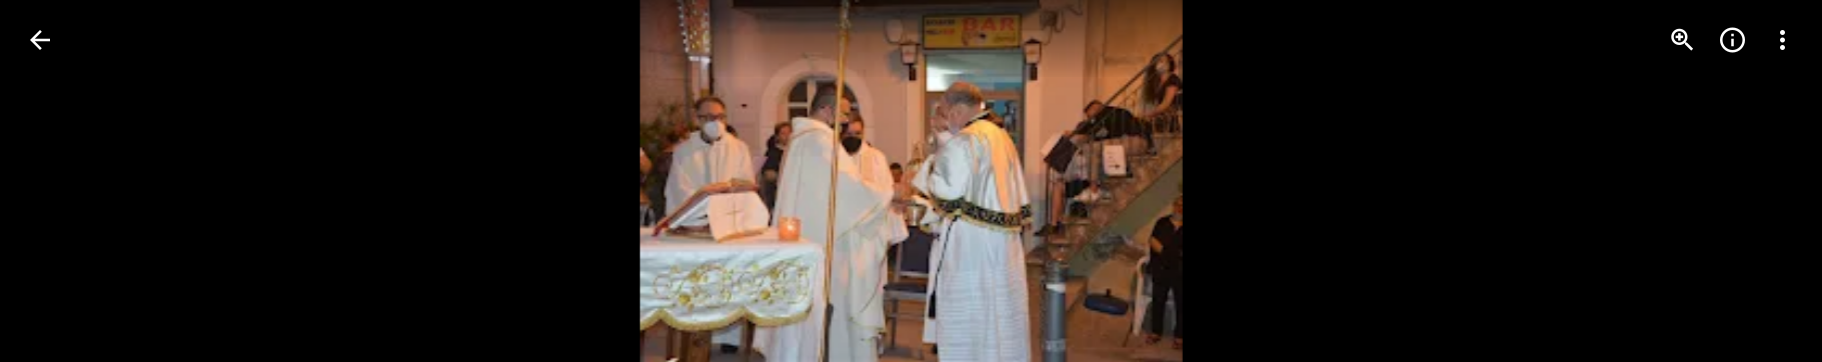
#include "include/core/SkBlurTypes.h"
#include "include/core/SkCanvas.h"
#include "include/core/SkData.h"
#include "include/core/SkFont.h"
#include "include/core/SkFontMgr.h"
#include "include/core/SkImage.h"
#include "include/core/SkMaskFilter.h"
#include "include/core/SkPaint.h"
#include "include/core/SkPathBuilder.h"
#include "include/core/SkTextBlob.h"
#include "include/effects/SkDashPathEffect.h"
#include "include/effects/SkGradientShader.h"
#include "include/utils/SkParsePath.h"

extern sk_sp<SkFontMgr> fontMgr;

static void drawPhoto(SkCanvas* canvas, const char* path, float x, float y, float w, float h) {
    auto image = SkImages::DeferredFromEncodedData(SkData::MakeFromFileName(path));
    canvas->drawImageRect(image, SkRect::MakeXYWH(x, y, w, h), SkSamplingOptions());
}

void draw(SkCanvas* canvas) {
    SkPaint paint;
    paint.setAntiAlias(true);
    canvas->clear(0xFF000000);
    drawPhoto(canvas, "assets/img5.png", 639, 0, 544, 362);
    {
        const SkColor colors[] = {0x99000000, 0x00000000};
        const float stops[] = {0, 1};
        const SkPoint ends[] = {{911, 0}, {911, 80}};
        paint.setShader(SkGradientShader::MakeLinear(ends, colors, stops, 2, SkTileMode::kClamp));
        paint.setAlpha(255);
    }
    canvas->drawRect(SkRect::MakeXYWH(639, 0, 544, 77), paint);
    drawPhoto(canvas, "assets/img1.png", 30, 30, 20, 20);
    drawPhoto(canvas, "assets/img2.png", 1671, 28, 22, 23);
    drawPhoto(canvas, "assets/img3.png", 1720, 27, 25, 26);
    drawPhoto(canvas, "assets/img4.png", 1780, 30, 5, 20);
}
